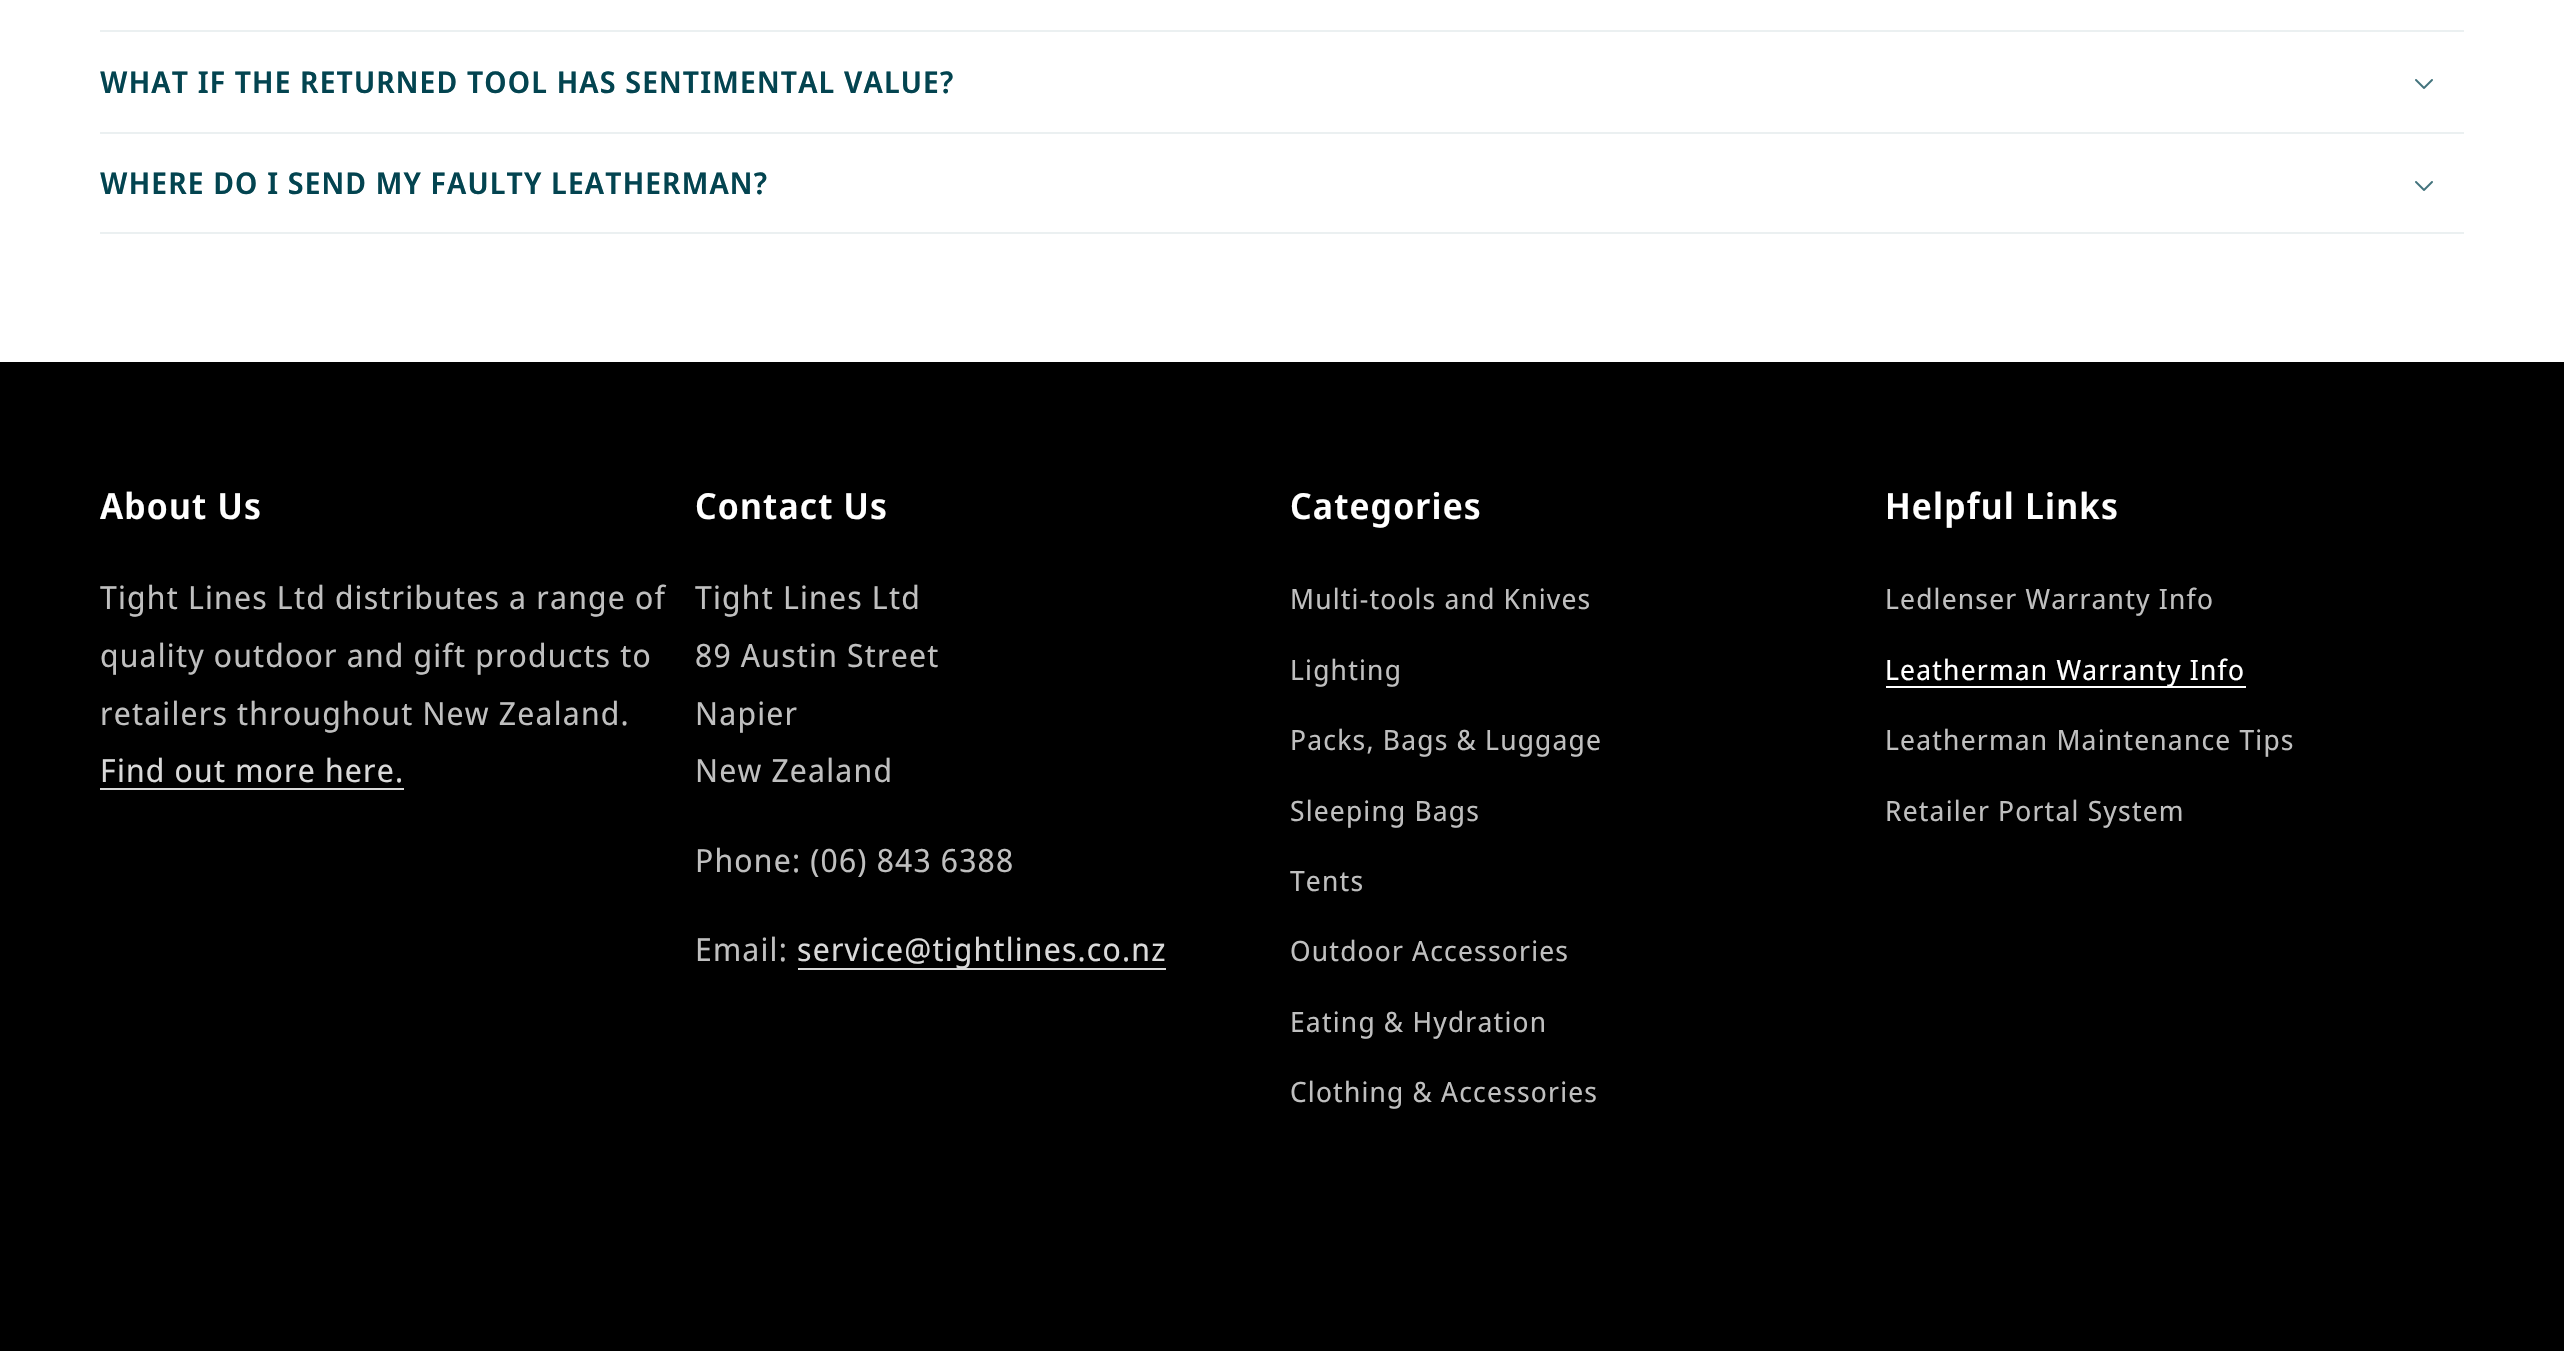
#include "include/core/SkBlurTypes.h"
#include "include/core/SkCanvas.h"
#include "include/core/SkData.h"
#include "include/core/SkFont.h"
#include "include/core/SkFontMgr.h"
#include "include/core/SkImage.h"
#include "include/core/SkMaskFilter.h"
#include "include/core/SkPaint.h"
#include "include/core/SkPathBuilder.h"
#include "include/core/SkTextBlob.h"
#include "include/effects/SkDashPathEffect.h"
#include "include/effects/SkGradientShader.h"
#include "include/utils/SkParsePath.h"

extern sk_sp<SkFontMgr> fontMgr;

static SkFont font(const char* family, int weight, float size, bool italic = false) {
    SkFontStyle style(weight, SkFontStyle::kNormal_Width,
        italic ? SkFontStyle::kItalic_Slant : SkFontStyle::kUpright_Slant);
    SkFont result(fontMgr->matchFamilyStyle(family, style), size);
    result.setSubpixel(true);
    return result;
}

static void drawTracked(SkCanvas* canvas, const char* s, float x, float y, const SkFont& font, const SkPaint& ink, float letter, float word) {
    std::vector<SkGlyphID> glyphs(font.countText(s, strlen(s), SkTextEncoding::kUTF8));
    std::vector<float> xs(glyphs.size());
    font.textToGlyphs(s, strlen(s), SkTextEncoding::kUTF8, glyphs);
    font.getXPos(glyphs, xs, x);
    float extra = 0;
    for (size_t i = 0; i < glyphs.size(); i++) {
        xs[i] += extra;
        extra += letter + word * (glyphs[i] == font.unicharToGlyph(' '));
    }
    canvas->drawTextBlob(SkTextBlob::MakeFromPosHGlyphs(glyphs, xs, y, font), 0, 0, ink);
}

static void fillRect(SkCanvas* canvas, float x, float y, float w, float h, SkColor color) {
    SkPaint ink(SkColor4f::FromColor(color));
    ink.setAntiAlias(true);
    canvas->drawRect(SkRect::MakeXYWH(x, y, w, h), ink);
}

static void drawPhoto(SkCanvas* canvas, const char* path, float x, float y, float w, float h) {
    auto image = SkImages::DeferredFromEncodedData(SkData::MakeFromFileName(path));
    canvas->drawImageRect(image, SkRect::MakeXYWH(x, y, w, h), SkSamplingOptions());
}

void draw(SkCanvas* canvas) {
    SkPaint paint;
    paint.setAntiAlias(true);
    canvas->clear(0xFFFFFFFF);
    fillRect(canvas, 100, 30, 2364, 2, 0xFFEBF0F1);
    fillRect(canvas, 100, 132, 2364, 2, 0xFFEBF0F1);
    SkFont font1 = font("Noto Sans Display", 600, 30);
    paint.setColor(0xFF034450);
    drawTracked(canvas, "WHAT IF THE RETURNED TOOL HAS SENTIMENTAL VALUE?", 100, 93, font1, paint, 1.2f, 0);
    drawPhoto(canvas, "assets/img1.png", 2415, 79, 18, 10);
    fillRect(canvas, 100, 232, 2364, 2, 0xFFEBF0F1);
    drawTracked(canvas, "WHERE DO I SEND MY FAULTY LEATHERMAN?", 100, 194, font1, paint, 1.2f, 0);
    drawPhoto(canvas, "assets/img1.png", 2415, 181, 18, 10);
    fillRect(canvas, 0, 362, 2564, 989, 0xFF000000);
    SkFont font2 = font("Noto Sans Display", 600, 36);
    paint.setColor(0xFFFFFFFF);
    drawTracked(canvas, "About Us", 100, 519, font2, paint, 1.2f, 0);
    SkFont font3 = font("Noto Sans Display", 400, 32);
    paint.setColor(0xFFBFBFBF);
    drawTracked(canvas, "Tight Lines Ltd distributes a range of", 100, 609, font3, paint, 1.2f, 0);
    drawTracked(canvas, "quality outdoor and gift products to", 100, 667, font3, paint, 1.2f, 0);
    drawTracked(canvas, "retailers throughout New Zealand.", 100, 725, font3, paint, 1.2f, 0);
    paint.setColor(0xFFD9D9D9);
    drawTracked(canvas, "Find out more here.", 100, 782, font3, paint, 1.2f, 0);
    fillRect(canvas, 100, 788, 304, 2, 0xFFD9D9D9);
    paint.setColor(0xFFFFFFFF);
    drawTracked(canvas, "Contact Us", 695, 519, font2, paint, 1.2f, 0);
    paint.setColor(0xFFBFBFBF);
    drawTracked(canvas, "Tight Lines Ltd", 695, 609, font3, paint, 1.2f, 0);
    drawTracked(canvas, "89 Austin Street", 695, 667, font3, paint, 1.2f, 0);
    drawTracked(canvas, "Napier", 695, 725, font3, paint, 1.2f, 0);
    drawTracked(canvas, "New Zealand", 695, 782, font3, paint, 1.2f, 0);
    drawTracked(canvas, "Phone: (06) 843 6388", 695, 872, font3, paint, 1.2f, 0);
    drawTracked(canvas, "Email:", 695, 961, font3, paint, 1.2f, 0);
    fillRect(canvas, 798, 968, 368, 2, 0xFFD9D9D9);
    paint.setColor(0xFFD9D9D9);
    drawTracked(canvas, "service@tightlines.co.nz", 797, 961, font3, paint, 1.2f, 0);
    paint.setColor(0xFFFFFFFF);
    drawTracked(canvas, "Categories", 1290, 519, font2, paint, 1.2f, 0);
    SkFont font4 = font("Noto Sans Display", 400, 28);
    paint.setColor(0xFFBFBFBF);
    drawTracked(canvas, "Multi-tools and Knives", 1290, 609, font4, paint, 1.2f, 0);
    drawTracked(canvas, "Lighting", 1290, 680, font4, paint, 1.2f, 0);
    drawTracked(canvas, "Packs, Bags & Luggage", 1290, 750, font4, paint, 1.2f, 0);
    drawTracked(canvas, "Sleeping Bags", 1290, 821, font4, paint, 1.2f, 0);
    drawTracked(canvas, "Tents", 1290, 891, font4, paint, 1.2f, 0);
    drawTracked(canvas, "Outdoor Accessories", 1290, 961, font4, paint, 1.2f, 0);
    drawTracked(canvas, "Eating & Hydration", 1290, 1032, font4, paint, 1.2f, 0);
    drawTracked(canvas, "Clothing & Accessories", 1290, 1102, font4, paint, 1.2f, 0);
    paint.setColor(0xFFFFFFFF);
    drawTracked(canvas, "Helpful Links", 1885, 519, font2, paint, 1.2f, 0);
    paint.setColor(0xFFBFBFBF);
    drawTracked(canvas, "Ledlenser Warranty Info", 1885, 609, font4, paint, 1.2f, 0);
    fillRect(canvas, 1886, 686, 360, 2, 0xFFFFFFFF);
    paint.setColor(0xFFFFFFFF);
    drawTracked(canvas, "Leatherman Warranty Info", 1885, 680, font4, paint, 1.2f, 0);
    paint.setColor(0xFFBFBFBF);
    drawTracked(canvas, "Leatherman Maintenance Tips", 1885, 750, font4, paint, 1.2f, 0);
    drawTracked(canvas, "Retailer Portal System", 1885, 821, font4, paint, 1.2f, 0);
}
